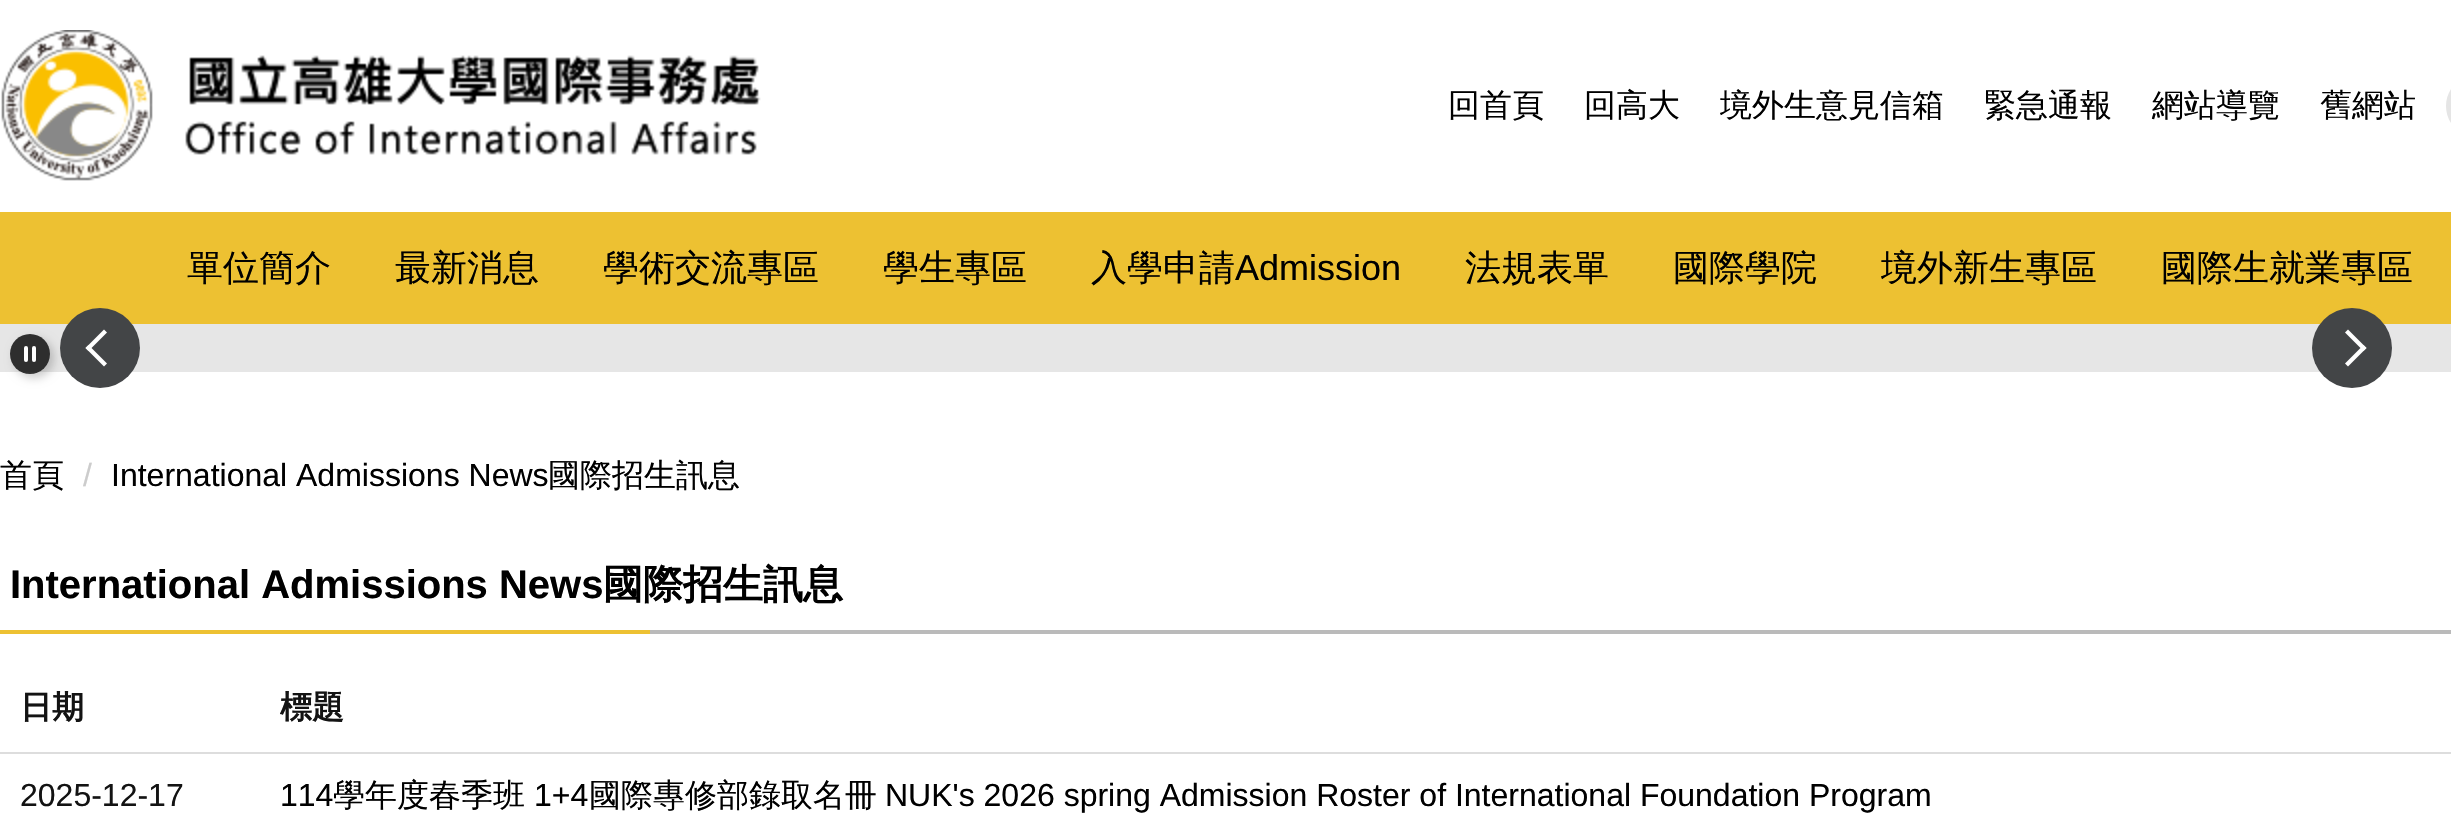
#include "include/core/SkBlurTypes.h"
#include "include/core/SkCanvas.h"
#include "include/core/SkData.h"
#include "include/core/SkFont.h"
#include "include/core/SkFontMgr.h"
#include "include/core/SkImage.h"
#include "include/core/SkMaskFilter.h"
#include "include/core/SkPaint.h"
#include "include/core/SkPathBuilder.h"
#include "include/core/SkTextBlob.h"
#include "include/effects/SkDashPathEffect.h"
#include "include/effects/SkGradientShader.h"
#include "include/utils/SkParsePath.h"

extern sk_sp<SkFontMgr> fontMgr;

static SkFont font(const char* family, int weight, float size, bool italic = false) {
    SkFontStyle style(weight, SkFontStyle::kNormal_Width,
        italic ? SkFontStyle::kItalic_Slant : SkFontStyle::kUpright_Slant);
    SkFont result(fontMgr->matchFamilyStyle(family, style), size);
    result.setSubpixel(true);
    return result;
}

static void drawLabel(SkCanvas* canvas, const char* s, float x, float y, const SkFont& font, SkColor color) {
    SkPaint ink(SkColor4f::FromColor(color));
    ink.setAntiAlias(true);
    canvas->drawString(s, x, y, font, ink);
}

static void fillRect(SkCanvas* canvas, float x, float y, float w, float h, SkColor color) {
    SkPaint ink(SkColor4f::FromColor(color));
    ink.setAntiAlias(true);
    canvas->drawRect(SkRect::MakeXYWH(x, y, w, h), ink);
}

static void fillRRect(SkCanvas* canvas, float x, float y, float w, float h, float radius, SkColor color) {
    SkPaint ink(SkColor4f::FromColor(color));
    ink.setAntiAlias(true);
    canvas->drawRoundRect(SkRect::MakeXYWH(x, y, w, h), radius, radius, ink);
}

static void drawPhoto(SkCanvas* canvas, const char* path, float x, float y, float w, float h) {
    auto image = SkImages::DeferredFromEncodedData(SkData::MakeFromFileName(path));
    canvas->drawImageRect(image, SkRect::MakeXYWH(x, y, w, h), SkSamplingOptions());
}

static SkPath parsePath(const char* data, bool evenOdd = false) {
    SkPath result = *SkParsePath::FromSVGString(data);
    if (evenOdd) result.setFillType(SkPathFillType::kEvenOdd);
    return result;
}

void draw(SkCanvas* canvas) {
    SkPaint paint;
    paint.setAntiAlias(true);
    canvas->clear(0xFFFFFFFF);
    drawPhoto(canvas, "assets/img1.png", 1, 30, 760, 151);
    SkFont font1 = font("WenQuanYi Zen Hei", 500, 32);
    drawLabel(canvas, "回首頁", 1448, 116, font1, 0xFF000000);
    drawLabel(canvas, "回高大", 1584, 116, font1, 0xFF000000);
    drawLabel(canvas, "境外生意見信箱", 1720, 116, font1, 0xFF000000);
    drawLabel(canvas, "緊急通報", 1984, 116, font1, 0xFF000000);
    drawLabel(canvas, "網站導覽", 2152, 116, font1, 0xFF000000);
    drawLabel(canvas, "舊網站", 2320, 116, font1, 0xFF000000);
    paint.setColor(0xFFE5E5E5);
    canvas->drawPath(parsePath("M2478 74H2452V138H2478C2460.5 138 2446 123.5 2446 106C2446 88.5 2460.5 74 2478 74Z"), paint);
    fillRect(canvas, 0, 212, 2451, 112, 0xFFEDC132);
    SkFont font2 = font("WenQuanYi Zen Hei", 500, 36);
    drawLabel(canvas, "單位簡介", 187, 280, font2, 0xFF000000);
    drawLabel(canvas, "最新消息", 395, 280, font2, 0xFF000000);
    drawLabel(canvas, "學術交流專區", 603, 280, font2, 0xFF000000);
    drawLabel(canvas, "學生專區", 883, 280, font2, 0xFF000000);
    drawLabel(canvas, "入學申請", 1091, 280, font2, 0xFF000000);
    SkFont font3 = font("Liberation Sans", 400, 36);
    drawLabel(canvas, "Admission", 1235, 280, font3, 0xFF000000);
    drawLabel(canvas, "法規表單", 1465, 280, font2, 0xFF000000);
    drawLabel(canvas, "國際學院", 1673, 280, font2, 0xFF000000);
    drawLabel(canvas, "境外新生專區", 1881, 280, font2, 0xFF000000);
    drawLabel(canvas, "國際生就業專區", 2161, 280, font2, 0xFF000000);
    fillRect(canvas, 0, 324, 2451, 48, 0xFFE6E6E6);
    paint.setColor(0xFF434547);
    canvas->drawCircle(100, 348, 40, paint);
    canvas->save();
    canvas->clipPath(parsePath("M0 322H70V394H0ZM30 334C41 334 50 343 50 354C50 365 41 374 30 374C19 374 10 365 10 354C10 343 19 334 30 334Z", true), true);
    paint.setColor(0x33000000);
    paint.setMaskFilter(SkMaskFilter::MakeBlur(kNormal_SkBlurStyle, 5));
    canvas->drawRoundRect(SkRect::MakeXYWH(14, 338, 40, 40), 20, 20, paint);
    paint.setMaskFilter(nullptr);
    canvas->restore();
    paint.setColor(0xCC000000);
    canvas->drawCircle(30, 354, 20, paint);
    fillRRect(canvas, 24, 346, 4, 16, 2, 0xFFFFFFFF);
    fillRRect(canvas, 32, 346, 4, 16, 2, 0xFFFFFFFF);
    paint.setColor(0xFFFFFFFF);
    canvas->drawPath(parsePath("M104 366.5L85.5 348L88.5 345L107 363.5Z"), paint);
    canvas->drawPath(parsePath("M88.5 351L85.5 348L104 329.5L107 332.5Z"), paint);
    paint.setColor(0xFF434547);
    canvas->drawCircle(2352, 348, 40, paint);
    paint.setColor(0xFFFFFFFF);
    canvas->drawPath(parsePath("M2348 329.5L2366.5 348L2363.5 351L2345 332.5Z"), paint);
    canvas->drawPath(parsePath("M2363.5 345L2366.5 348L2348 366.5L2345 363.5Z"), paint);
    drawLabel(canvas, "首頁", 0, 486, font1, 0xFF000000);
    SkFont font4 = font("Liberation Sans", 400, 32);
    drawLabel(canvas, "/", 83, 486, font4, 0xFFCCCCCC);
    drawLabel(canvas, "International Admissions News", 111, 486, font4, 0xFF000000);
    drawLabel(canvas, "國際招生訊息", 548, 486, font1, 0xFF000000);
    fillRect(canvas, 650, 630, 1801, 4, 0xFFBABABA);
    SkFont font5 = font("Liberation Sans", 700, 40);
    drawLabel(canvas, "International Admissions News", 10, 598, font5, 0xFF000000);
    SkFont font6 = font("WenQuanYi Zen Hei", 700, 40);
    drawLabel(canvas, "國際招生訊息", 603, 598, font6, 0xFF000000);
    fillRect(canvas, 0, 630, 650, 4, 0xFFEDC132);
    fillRect(canvas, 0, 752, 2451, 2, 0xFFDDDDDD);
    SkFont font7 = font("WenQuanYi Zen Hei", 700, 32);
    drawLabel(canvas, "日期", 20, 718, font7, 0xFF131313);
    drawLabel(canvas, "標題", 280, 718, font7, 0xFF131313);
    drawLabel(canvas, "2025-12-17", 20, 806, font4, 0xFF131313);
    drawLabel(canvas, "114", 280, 806, font4, 0xFF000000);
    drawLabel(canvas, "學年度春季班", 333, 806, font1, 0xFF000000);
    drawLabel(canvas, "1+4", 534, 806, font4, 0xFF000000);
    drawLabel(canvas, "國際專修部錄取名冊", 589, 806, font1, 0xFF000000);
    drawLabel(canvas, "NUK's 2026 spring Admission Roster of International Foundation Program", 885, 806, font4, 0xFF000000);
}
